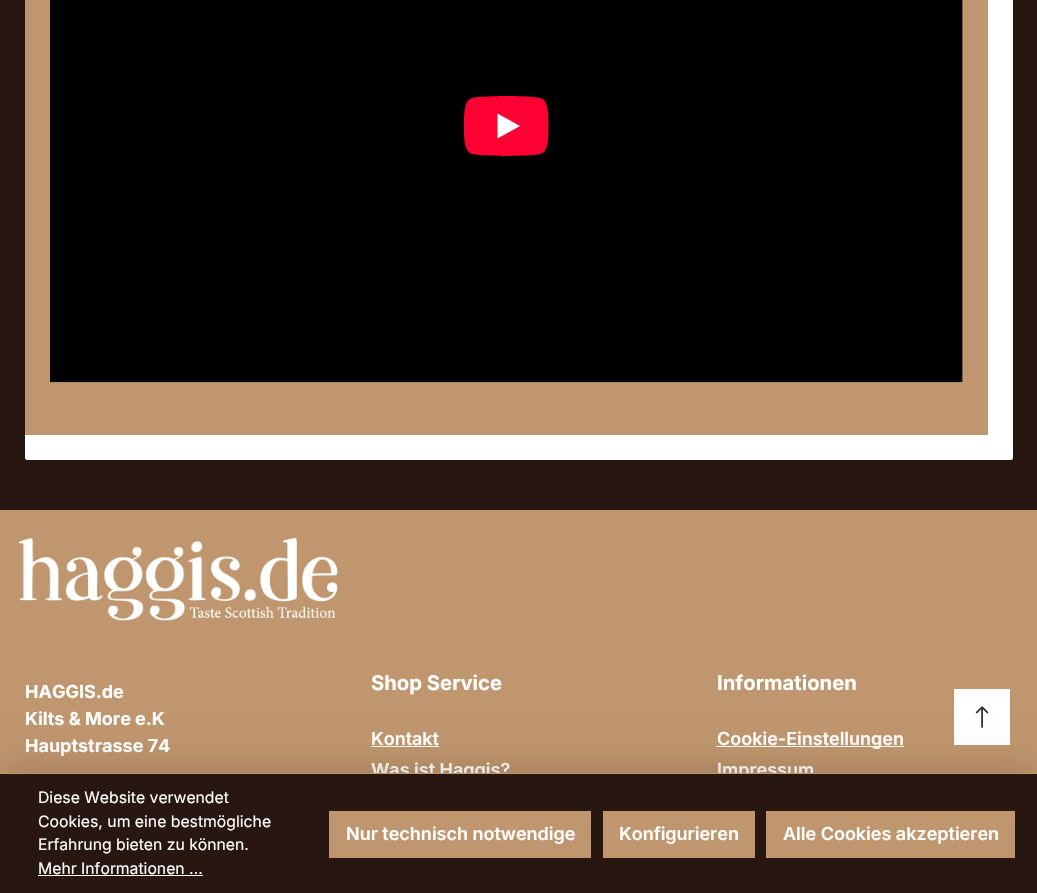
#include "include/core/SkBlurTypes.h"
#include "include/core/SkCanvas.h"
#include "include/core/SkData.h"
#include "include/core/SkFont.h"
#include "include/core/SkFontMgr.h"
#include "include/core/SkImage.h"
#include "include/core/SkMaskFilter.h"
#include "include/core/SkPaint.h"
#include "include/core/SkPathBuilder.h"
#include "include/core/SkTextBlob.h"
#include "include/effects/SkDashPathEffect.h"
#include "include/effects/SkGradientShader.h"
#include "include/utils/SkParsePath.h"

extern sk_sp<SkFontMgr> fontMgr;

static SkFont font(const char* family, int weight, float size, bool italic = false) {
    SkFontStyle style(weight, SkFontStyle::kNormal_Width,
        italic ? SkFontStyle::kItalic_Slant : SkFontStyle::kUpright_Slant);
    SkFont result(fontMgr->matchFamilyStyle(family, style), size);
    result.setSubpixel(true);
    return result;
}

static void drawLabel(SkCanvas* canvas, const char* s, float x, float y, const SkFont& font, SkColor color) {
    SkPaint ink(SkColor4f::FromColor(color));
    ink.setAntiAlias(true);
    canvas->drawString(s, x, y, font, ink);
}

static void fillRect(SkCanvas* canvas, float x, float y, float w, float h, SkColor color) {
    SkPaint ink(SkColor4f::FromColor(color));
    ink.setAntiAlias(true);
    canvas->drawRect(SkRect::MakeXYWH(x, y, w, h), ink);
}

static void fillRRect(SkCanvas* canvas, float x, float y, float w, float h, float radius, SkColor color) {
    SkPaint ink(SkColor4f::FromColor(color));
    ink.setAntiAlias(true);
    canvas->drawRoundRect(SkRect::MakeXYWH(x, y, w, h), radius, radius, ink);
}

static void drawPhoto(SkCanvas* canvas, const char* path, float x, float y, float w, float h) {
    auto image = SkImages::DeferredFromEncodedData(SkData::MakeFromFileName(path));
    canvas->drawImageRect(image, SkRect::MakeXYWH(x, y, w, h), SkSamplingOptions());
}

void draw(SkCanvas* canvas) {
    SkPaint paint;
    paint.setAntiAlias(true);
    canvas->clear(0xFF281710);
    fillRRect(canvas, 25, -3, 988, 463, 2.5f, 0xFFFFFFFF);
    fillRect(canvas, 25, 0, 963, 435, 0xFFBF966D);
    drawPhoto(canvas, "assets/img1.png", 50, 0, 913, 383);
    fillRect(canvas, 0, 510, 1037, 263, 0xFFBF966D);
    drawPhoto(canvas, "assets/img2.png", 18, 538, 320, 83);
    SkFont font1 = font("Inter", 700, 18);
    drawLabel(canvas, "HAGGIS.de", 25, 698, font1, 0xFFFFFFFF);
    drawLabel(canvas, "Kilts & More e.K", 25, 725, font1, 0xFFFFFFFF);
    drawLabel(canvas, "Hauptstrasse 74", 25, 752, font1, 0xFFFFFFFF);
    SkFont font2 = font("Inter", 700, 20.25f);
    drawLabel(canvas, "Shop Service", 371, 690, font2, 0xFFFFFFFF);
    SkFont font3 = font("Inter", 600, 18);
    drawLabel(canvas, "Kontakt", 371, 745, font3, 0xFFFFFFFF);
    fillRect(canvas, 371, 746, 68, 1, 0xFFFEFEFE);
    drawLabel(canvas, "Was ist Haggis?", 371, 776, font3, 0xFFFFFFFF);
    drawLabel(canvas, "Informationen", 717, 690, font2, 0xFFFFFFFF);
    fillRect(canvas, 716, 746, 188, 1, 0xFFFEFEFE);
    drawLabel(canvas, "Cookie-Einstellungen", 717, 745, font3, 0xFFFFFFFF);
    drawLabel(canvas, "Impressum", 717, 776, font3, 0xFFFFFFFF);
    fillRect(canvas, 954, 689, 56, 56, 0xFFFFFFFF);
    drawPhoto(canvas, "assets/img3.png", 975, 706, 14, 22);
    paint.setColor(0x33000000);
    paint.setMaskFilter(SkMaskFilter::MakeBlur(kNormal_SkBlurStyle, 19));
    canvas->drawRect(SkRect::MakeXYWH(0, 773, 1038, 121), paint);
    paint.setMaskFilter(nullptr);
    fillRect(canvas, 0, 774, 1037, 119, 0xFF281710);
    fillRect(canvas, 0, 773, 1037, 1, 0xFFBF966D);
    SkFont font4 = font("Inter", 400, 15.75f);
    drawLabel(canvas, "Diese Website verwendet", 38, 803, font4, 0xFFFFFFFF);
    drawLabel(canvas, "Cookies, um eine bestmögliche", 38, 827, font4, 0xFFFFFFFF);
    drawLabel(canvas, "Erfahrung bieten zu können.", 38, 850, font4, 0xFFFFFFFF);
    drawLabel(canvas, "Mehr Informationen ...", 38, 874, font4, 0xFFFFFFFF);
    fillRect(canvas, 38, 875, 165, 1, 0xFFFFFFFF);
    fillRect(canvas, 329, 811, 262, 47, 0xFFBF966D);
    drawLabel(canvas, "Nur technisch notwendige", 346, 840, font3, 0xFFFFFFFF);
    fillRect(canvas, 603, 811, 152, 47, 0xFFBF966D);
    drawLabel(canvas, "Konfigurieren", 619, 840, font3, 0xFFFFFFFF);
    fillRect(canvas, 766, 811, 249, 47, 0xFFBF966D);
    drawLabel(canvas, "Alle Cookies akzeptieren", 783, 840, font3, 0xFFFFFFFF);
}
